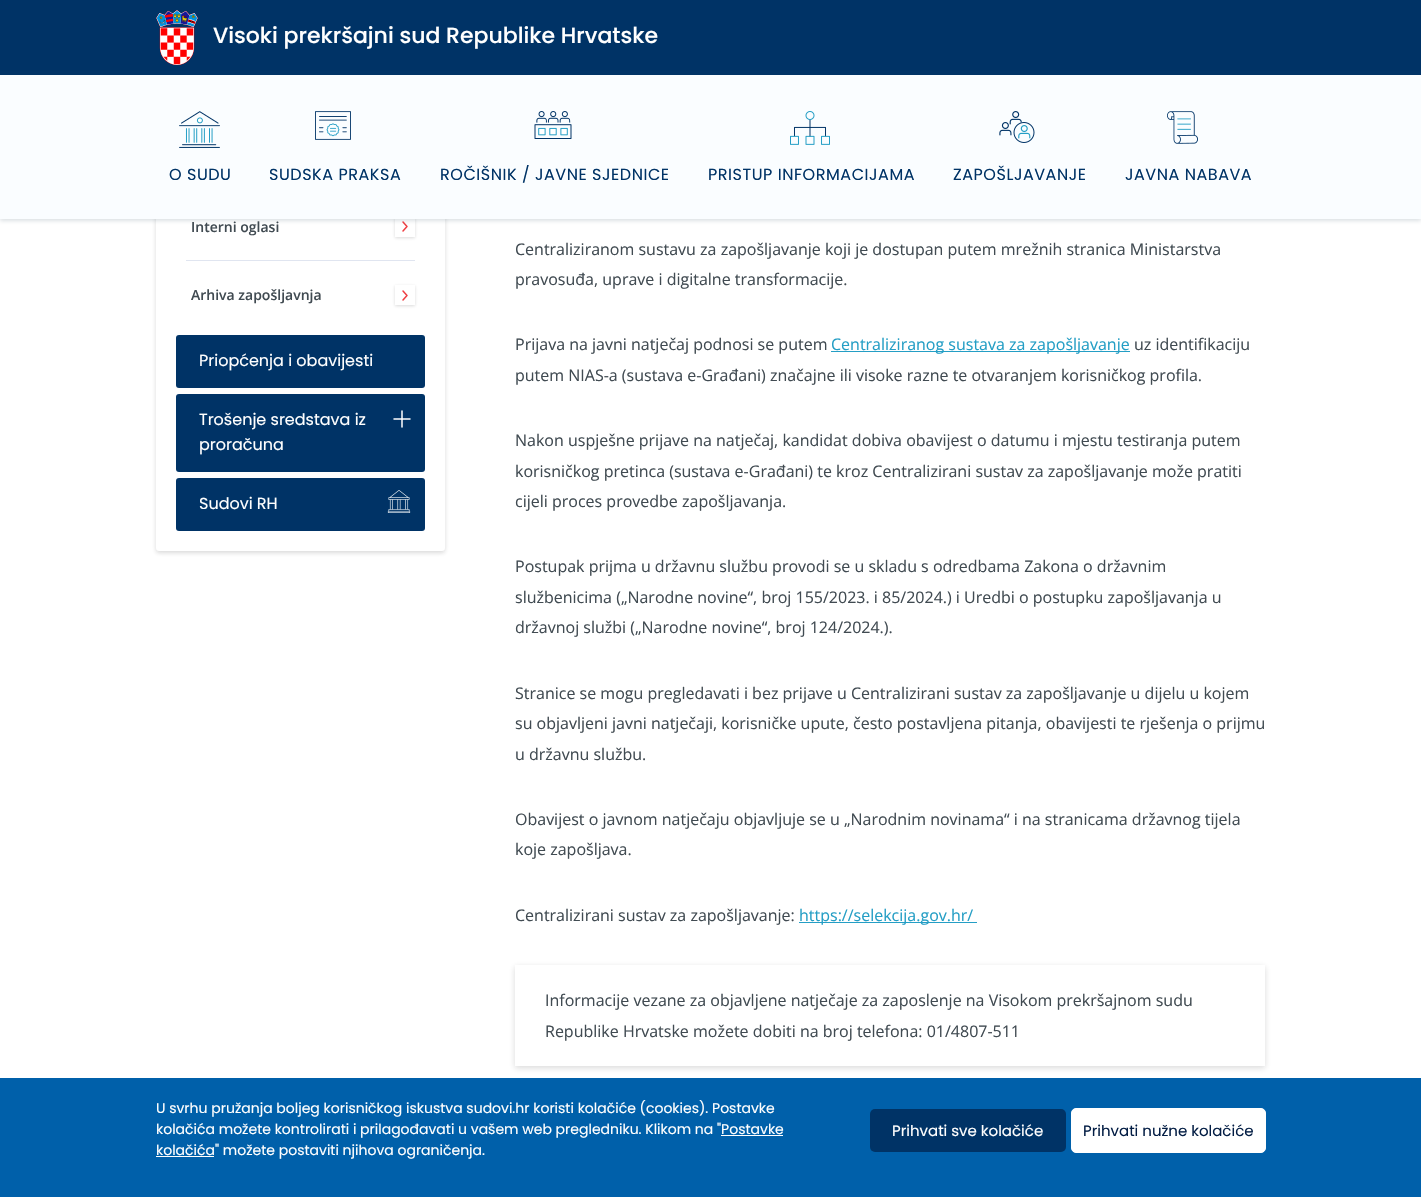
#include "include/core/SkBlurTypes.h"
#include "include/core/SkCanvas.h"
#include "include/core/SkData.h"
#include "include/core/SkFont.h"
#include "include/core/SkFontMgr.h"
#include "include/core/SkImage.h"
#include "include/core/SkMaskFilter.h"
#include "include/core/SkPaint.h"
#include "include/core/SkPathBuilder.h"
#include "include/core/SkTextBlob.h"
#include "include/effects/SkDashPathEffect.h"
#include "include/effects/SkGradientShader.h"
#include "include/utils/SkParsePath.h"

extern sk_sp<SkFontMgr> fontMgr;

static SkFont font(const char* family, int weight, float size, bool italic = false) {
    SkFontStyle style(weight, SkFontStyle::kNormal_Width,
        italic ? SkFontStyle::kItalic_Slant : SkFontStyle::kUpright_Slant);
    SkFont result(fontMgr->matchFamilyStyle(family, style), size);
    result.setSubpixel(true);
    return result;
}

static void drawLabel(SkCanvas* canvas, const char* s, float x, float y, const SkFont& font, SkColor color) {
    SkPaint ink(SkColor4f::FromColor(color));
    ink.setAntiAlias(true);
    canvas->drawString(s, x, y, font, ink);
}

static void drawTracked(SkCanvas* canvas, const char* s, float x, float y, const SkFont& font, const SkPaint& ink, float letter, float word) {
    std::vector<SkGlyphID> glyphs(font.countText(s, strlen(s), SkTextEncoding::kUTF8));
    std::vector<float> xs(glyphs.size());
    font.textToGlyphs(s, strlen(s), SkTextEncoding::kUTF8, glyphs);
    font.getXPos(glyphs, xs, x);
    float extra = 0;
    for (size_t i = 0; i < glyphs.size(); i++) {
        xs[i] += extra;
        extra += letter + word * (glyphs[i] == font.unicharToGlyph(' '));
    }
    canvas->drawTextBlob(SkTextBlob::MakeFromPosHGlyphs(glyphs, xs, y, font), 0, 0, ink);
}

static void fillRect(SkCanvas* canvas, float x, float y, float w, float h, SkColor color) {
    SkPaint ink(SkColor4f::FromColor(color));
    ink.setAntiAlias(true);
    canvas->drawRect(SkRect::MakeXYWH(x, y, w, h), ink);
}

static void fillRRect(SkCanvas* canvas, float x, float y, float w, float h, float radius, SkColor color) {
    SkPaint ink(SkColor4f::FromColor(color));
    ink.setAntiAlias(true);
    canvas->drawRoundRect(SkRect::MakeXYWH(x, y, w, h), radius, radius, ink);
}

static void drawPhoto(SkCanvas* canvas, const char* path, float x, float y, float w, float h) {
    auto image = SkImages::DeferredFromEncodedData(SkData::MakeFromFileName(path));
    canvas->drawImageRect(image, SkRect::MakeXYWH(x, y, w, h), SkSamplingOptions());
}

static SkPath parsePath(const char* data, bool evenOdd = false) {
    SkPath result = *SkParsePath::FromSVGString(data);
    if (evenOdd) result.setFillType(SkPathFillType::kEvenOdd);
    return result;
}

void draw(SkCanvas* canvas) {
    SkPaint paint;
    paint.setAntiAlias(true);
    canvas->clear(0xFFFFFFFF);
    paint.setColor(0x29181919);
    paint.setMaskFilter(SkMaskFilter::MakeBlur(kNormal_SkBlurStyle, 2));
    canvas->drawRoundRect(SkRect::MakeXYWH(156, -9, 289, 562), 3, 3, paint);
    paint.setMaskFilter(nullptr);
    fillRRect(canvas, 156, -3, 289, 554, 3, 0xFFFFFFFF);
    fillRect(canvas, 0, 0, 1421, 75, 0xFF003366);
    drawPhoto(canvas, "assets/img1.png", 156, 10, 42, 55);
    SkFont font1 = font("Poppins", 500, 22);
    drawLabel(canvas, "Visoki prekršajni sud Republike Hrvatske", 213, 43, font1, 0xFFFFFFFF);
    canvas->save();
    canvas->clipPath(parsePath("M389 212H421V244H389ZM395 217H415V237H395Z", true), true);
    paint.setMaskFilter(SkMaskFilter::MakeBlur(kNormal_SkBlurStyle, 1.5f));
    canvas->drawRect(SkRect::MakeXYWH(395, 218, 20, 20), paint);
    paint.setMaskFilter(nullptr);
    canvas->restore();
    paint.setStroke(true);
    paint.setStrokeWidth(1.5f);
    paint.setStrokeCap(SkPaint::kRound_Cap);
    paint.setStrokeJoin(SkPaint::kRound_Join);
    paint.setColor(0xFFEF3E42);
    canvas->drawPath(parsePath("M403 231L407 226.5L403 222"), paint);
    paint.setStroke(false);
    paint.setColor(0x29284359);
    paint.setMaskFilter(SkMaskFilter::MakeBlur(kNormal_SkBlurStyle, 2));
    canvas->drawRect(SkRect::MakeXYWH(0, 77, 1421, 144), paint);
    paint.setMaskFilter(nullptr);
    fillRect(canvas, 0, 75, 1421, 144, 0xFFFAFDFF);
    drawPhoto(canvas, "assets/img2.png", 179, 111, 41, 37);
    SkFont font2 = font("Poppins", 400, 16);
    paint.setColor(0xFF003366);
    drawTracked(canvas, "O SUDU", 169, 180, font2, paint, 0.55f, 0);
    drawPhoto(canvas, "assets/img3.png", 315, 111, 36, 29);
    drawTracked(canvas, "SUDSKA PRAKSA", 269, 180, font2, paint, 0.55f, 0);
    drawPhoto(canvas, "assets/img4.png", 534, 111, 38, 28);
    drawTracked(canvas, "ROČIŠNIK / JAVNE SJEDNICE", 440, 180, font2, paint, 0.55f, 0);
    drawPhoto(canvas, "assets/img5.png", 790, 111, 40, 34);
    drawTracked(canvas, "PRISTUP INFORMACIJAMA", 708, 180, font2, paint, 0.55f, 0);
    drawPhoto(canvas, "assets/img6.png", 999, 111, 36, 32);
    drawTracked(canvas, "ZAPOŠLJAVANJE", 953, 180, font2, paint, 0.55f, 0);
    drawPhoto(canvas, "assets/img7.png", 1167, 111, 31, 33);
    drawTracked(canvas, "JAVNA NABAVA", 1125, 180, font2, paint, 0.55f, 0);
    fillRect(canvas, 186, 260, 229, 1, 0xFFE0E5F0);
    SkFont font3 = font("Open Sans", 600, 14);
    drawLabel(canvas, "Interni oglasi", 191, 232, font3, 0xFF414B52);
    drawLabel(canvas, "Arhiva zapošljavnja", 191, 300, font3, 0xFF414B52);
    canvas->save();
    canvas->clipPath(parsePath("M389 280H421V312H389ZM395 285H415V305H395Z", true), true);
    paint.setColor(0x29181919);
    paint.setMaskFilter(SkMaskFilter::MakeBlur(kNormal_SkBlurStyle, 1.5f));
    canvas->drawRect(SkRect::MakeXYWH(395, 286, 20, 20), paint);
    paint.setMaskFilter(nullptr);
    canvas->restore();
    paint.setStroke(true);
    paint.setColor(0xFFEF3E42);
    canvas->drawPath(parsePath("M403 300L407 295.5L403 291"), paint);
    fillRRect(canvas, 176, 335, 249, 53, 3, 0xFF003366);
    drawLabel(canvas, "Priopćenja i obavijesti", 199, 366, font2, 0xFFFFFFFF);
    fillRRect(canvas, 176, 394, 249, 78, 3, 0xFF003366);
    drawLabel(canvas, "Trošenje sredstava iz", 199, 425, font2, 0xFFFFFFFF);
    drawLabel(canvas, "proračuna", 199, 450, font2, 0xFFFFFFFF);
    paint.setStrokeJoin(SkPaint::kMiter_Join);
    paint.setColor(0xFFFFFFFF);
    canvas->drawPath(parsePath("M394 419H410M402 411V427"), paint);
    fillRRect(canvas, 176, 478, 249, 53, 3, 0xFF003366);
    drawLabel(canvas, "Sudovi RH", 199, 509, font2, 0xFFFFFFFF);
    drawPhoto(canvas, "assets/img8.png", 387, 490, 24, 23);
    SkFont font4 = font("Open Sans", 400, 16);
    drawLabel(canvas, "Centraliziranom sustavu za zapošljavanje koji je dostupan putem mrežnih stranica Ministarstva", 515, 255, font4, 0xFF414B52);
    drawLabel(canvas, "pravosuđa, uprave i digitalne transformacije.", 515, 285, font4, 0xFF414B52);
    drawLabel(canvas, "Prijava na javni natječaj podnosi se putem", 515, 350, font4, 0xFF414B52);
    fillRect(canvas, 831, 351, 299, 1, 0xFF249EC5);
    drawLabel(canvas, "Centraliziranog sustava za zapošljavanje", 831, 350, font4, 0xFF249EC5);
    drawLabel(canvas, "uz identifikaciju", 1134, 350, font4, 0xFF414B52);
    drawLabel(canvas, "putem NIAS-a (sustava e-Građani) značajne ili visoke razne te otvaranjem korisničkog profila.", 515, 381, font4, 0xFF414B52);
    drawLabel(canvas, "Nakon uspješne prijave na natječaj, kandidat dobiva obavijest o datumu i mjestu testiranja putem", 515, 446, font4, 0xFF414B52);
    drawLabel(canvas, "korisničkog pretinca (sustava e-Građani) te kroz Centralizirani sustav za zapošljavanje može pratiti", 515, 477, font4, 0xFF414B52);
    drawLabel(canvas, "cijeli proces provedbe zapošljavanja.", 515, 507, font4, 0xFF414B52);
    drawLabel(canvas, "Postupak prijma u državnu službu provodi se u skladu s odredbama Zakona o državnim", 515, 572, font4, 0xFF414B52);
    drawLabel(canvas, "službenicima („Narodne novine“, broj 155/2023. i 85/2024.) i Uredbi o postupku zapošljavanja u", 515, 603, font4, 0xFF414B52);
    drawLabel(canvas, "državnoj službi („Narodne novine“, broj 124/2024.).", 515, 633, font4, 0xFF414B52);
    drawLabel(canvas, "Stranice se mogu pregledavati i bez prijave u Centralizirani sustav za zapošljavanje u dijelu u kojem", 515, 699, font4, 0xFF414B52);
    drawLabel(canvas, "su objavljeni javni natječaji, korisničke upute, često postavljena pitanja, obavijesti te rješenja o prijmu", 515, 729, font4, 0xFF414B52);
    drawLabel(canvas, "u državnu službu.", 515, 760, font4, 0xFF414B52);
    drawLabel(canvas, "Obavijest o javnom natječaju objavljuje se u „Narodnim novinama“ i na stranicama državnog tijela", 515, 825, font4, 0xFF414B52);
    drawLabel(canvas, "koje zapošljava.", 515, 855, font4, 0xFF414B52);
    drawLabel(canvas, "Centralizirani sustav za zapošljavanje:", 515, 921, font4, 0xFF414B52);
    fillRect(canvas, 799, 922, 178, 1, 0xFF249EC5);
    drawLabel(canvas, "https://selekcija.gov.hr/", 799, 921, font4, 0xFF249EC5);
    canvas->save();
    canvas->clipPath(parsePath("M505 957H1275V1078H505ZM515 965H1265V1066H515Z", true), true);
    paint.setStroke(false);
    paint.setColor(0x29181919);
    paint.setMaskFilter(SkMaskFilter::MakeBlur(kNormal_SkBlurStyle, 3));
    canvas->drawRect(SkRect::MakeXYWH(515, 967, 750, 101), paint);
    paint.setMaskFilter(nullptr);
    canvas->restore();
    drawLabel(canvas, "Informacije vezane za objavljene natječaje za zaposlenje na Visokom prekršajnom sudu", 545, 1006, font4, 0xFF414B52);
    drawLabel(canvas, "Republike Hrvatske možete dobiti na broj telefona: 01/4807-511", 545, 1037, font4, 0xFF414B52);
    fillRect(canvas, 0, 1078, 1421, 119, 0xFF0060AA);
    SkFont font5 = font("Poppins", 400, 14);
    drawLabel(canvas, "U svrhu pružanja boljeg korisničkog iskustva sudovi.hr koristi kolačiće (cookies). Postavke", 156, 1113, font5, 0xFFFFFFFF);
    drawLabel(canvas, "kolačića možete kontrolirati i prilagođavati u vašem web pregledniku. Klikom na \"Postavke", 156, 1134, font5, 0xFFFFFFFF);
    fillRect(canvas, 156, 1156, 58, 1, 0xFFFFFFFF);
    drawLabel(canvas, "kolačića\" možete postaviti njihova ograničenja.", 156, 1155, font5, 0xFFFFFFFF);
    fillRect(canvas, 721, 1135, 62, 1, 0xFFFFFFFF);
    fillRRect(canvas, 870, 1109, 196, 43, 5, 0xFF003366);
    SkFont font6 = font("Poppins", 400, 15);
    drawLabel(canvas, "Prihvati sve kolačiće", 892, 1136, font6, 0xFFFFFFFF);
    paint.setColor(0xFFFFFFFF);
    canvas->drawRoundRect(SkRect::MakeXYWH(1071.5f, 1108.5f, 194, 44), 4.5f, 4.5f, paint);
    paint.setStroke(true);
    paint.setStrokeWidth(1);
    paint.setStrokeCap(SkPaint::kButt_Cap);
    canvas->drawRoundRect(SkRect::MakeXYWH(1071.5f, 1108.5f, 194, 44), 4.5f, 4.5f, paint);
    drawLabel(canvas, "Prihvati nužne kolačiće", 1083, 1136, font6, 0xFF031D44);
}
